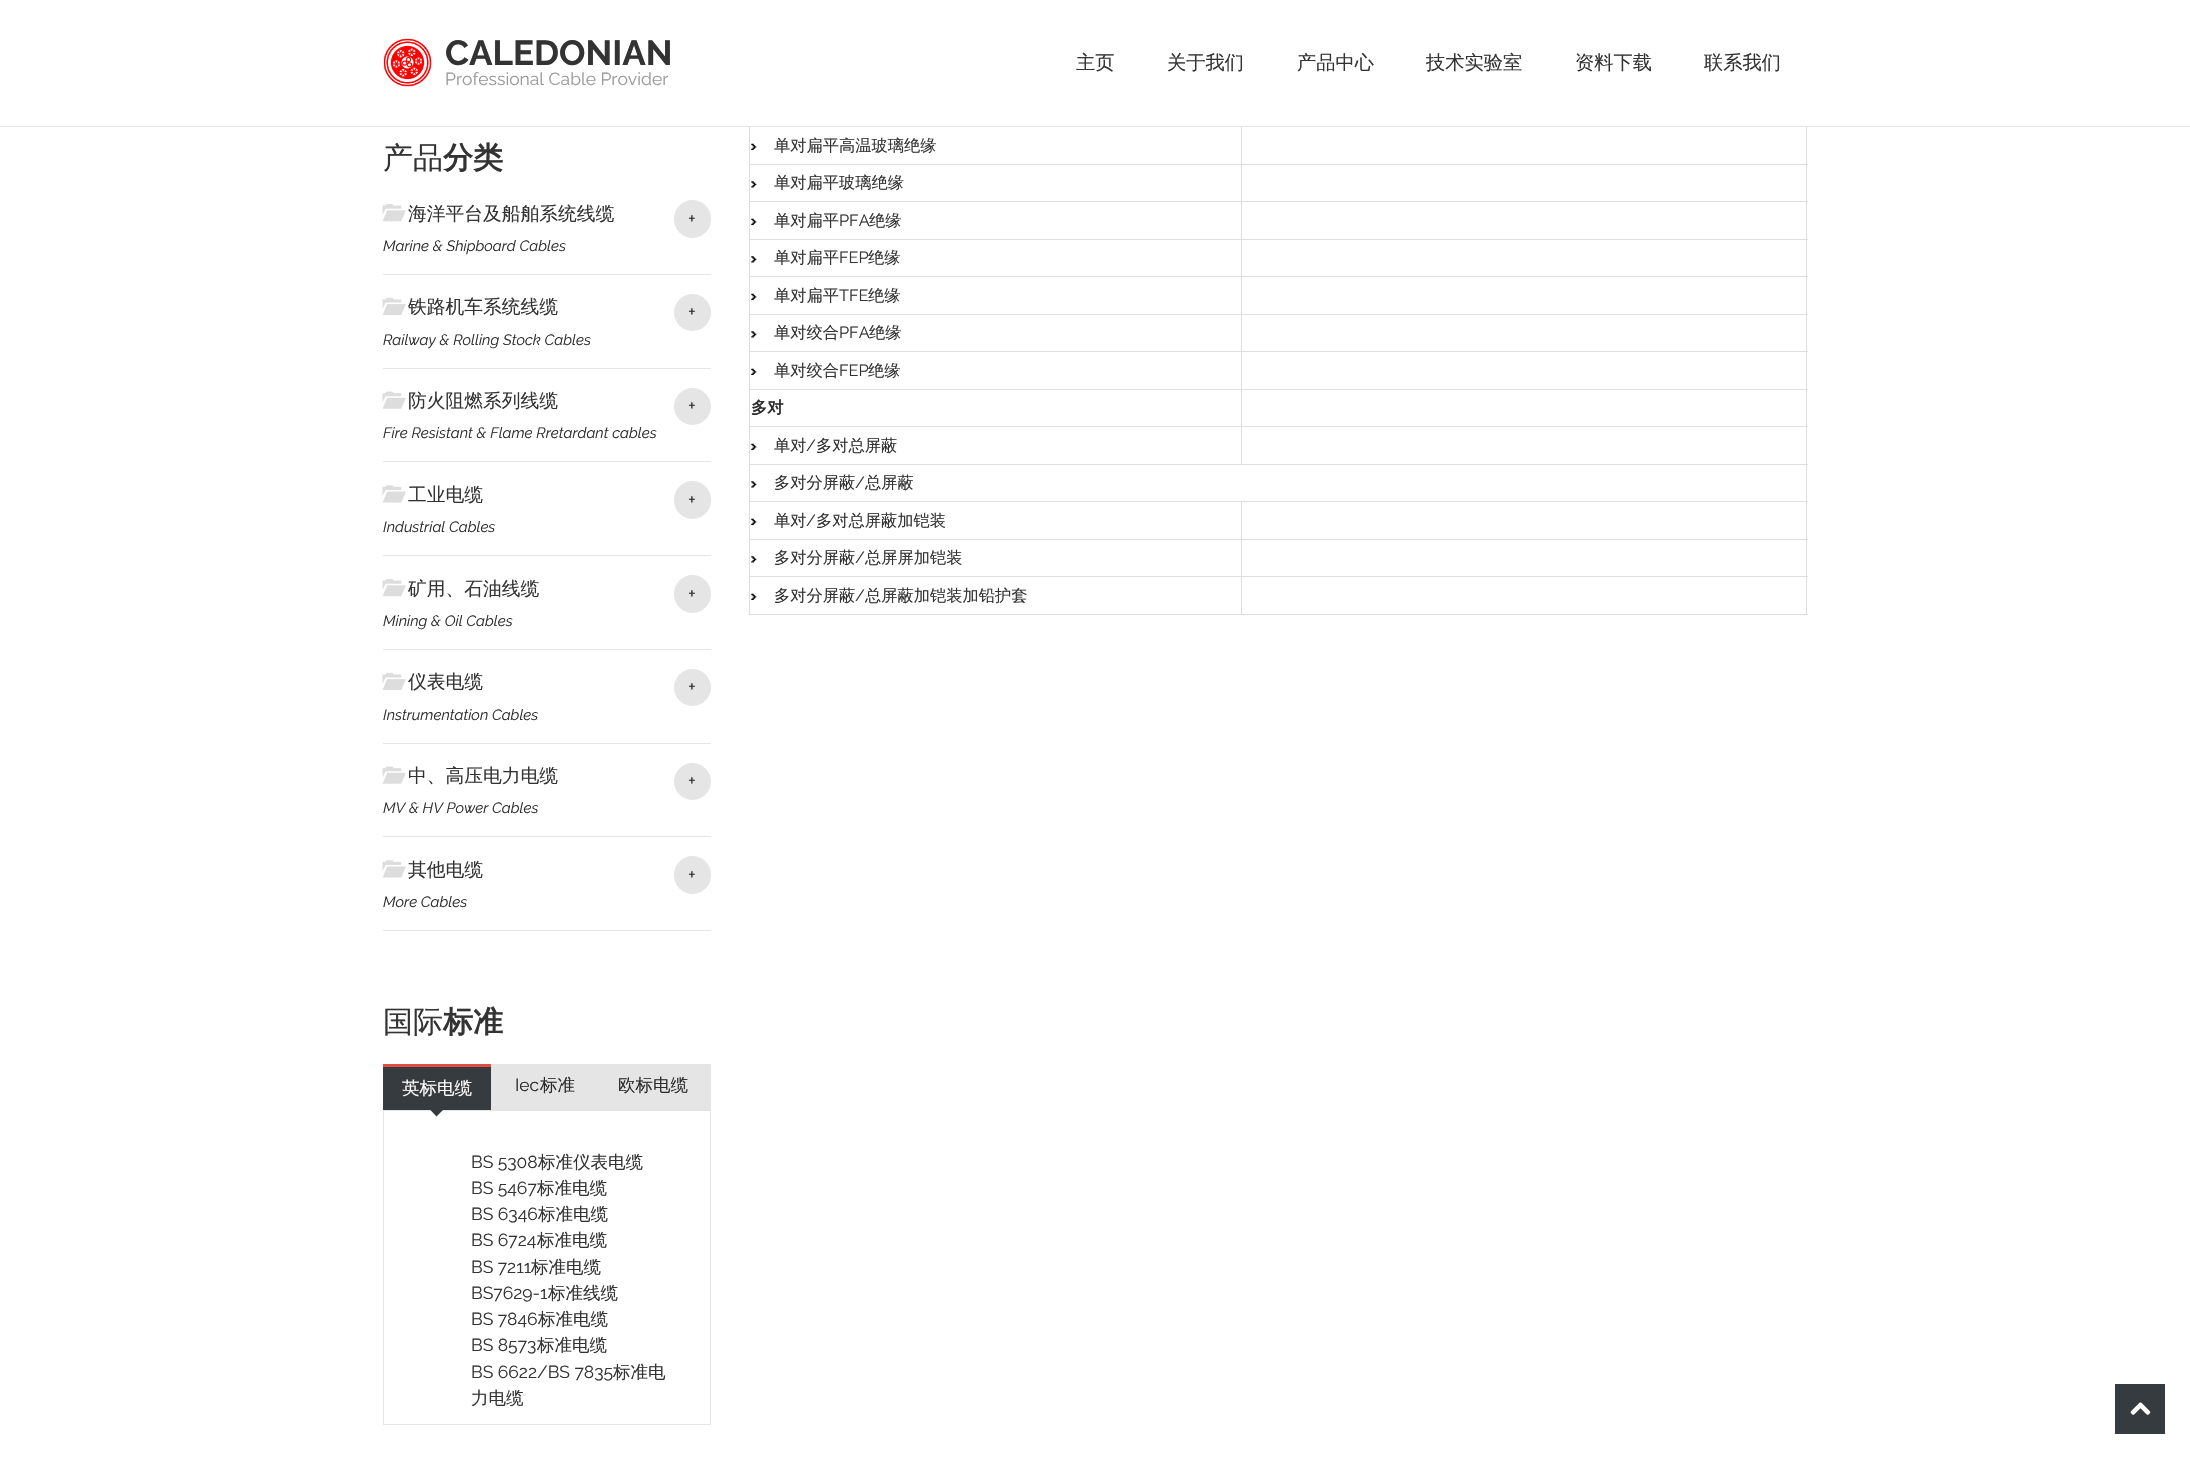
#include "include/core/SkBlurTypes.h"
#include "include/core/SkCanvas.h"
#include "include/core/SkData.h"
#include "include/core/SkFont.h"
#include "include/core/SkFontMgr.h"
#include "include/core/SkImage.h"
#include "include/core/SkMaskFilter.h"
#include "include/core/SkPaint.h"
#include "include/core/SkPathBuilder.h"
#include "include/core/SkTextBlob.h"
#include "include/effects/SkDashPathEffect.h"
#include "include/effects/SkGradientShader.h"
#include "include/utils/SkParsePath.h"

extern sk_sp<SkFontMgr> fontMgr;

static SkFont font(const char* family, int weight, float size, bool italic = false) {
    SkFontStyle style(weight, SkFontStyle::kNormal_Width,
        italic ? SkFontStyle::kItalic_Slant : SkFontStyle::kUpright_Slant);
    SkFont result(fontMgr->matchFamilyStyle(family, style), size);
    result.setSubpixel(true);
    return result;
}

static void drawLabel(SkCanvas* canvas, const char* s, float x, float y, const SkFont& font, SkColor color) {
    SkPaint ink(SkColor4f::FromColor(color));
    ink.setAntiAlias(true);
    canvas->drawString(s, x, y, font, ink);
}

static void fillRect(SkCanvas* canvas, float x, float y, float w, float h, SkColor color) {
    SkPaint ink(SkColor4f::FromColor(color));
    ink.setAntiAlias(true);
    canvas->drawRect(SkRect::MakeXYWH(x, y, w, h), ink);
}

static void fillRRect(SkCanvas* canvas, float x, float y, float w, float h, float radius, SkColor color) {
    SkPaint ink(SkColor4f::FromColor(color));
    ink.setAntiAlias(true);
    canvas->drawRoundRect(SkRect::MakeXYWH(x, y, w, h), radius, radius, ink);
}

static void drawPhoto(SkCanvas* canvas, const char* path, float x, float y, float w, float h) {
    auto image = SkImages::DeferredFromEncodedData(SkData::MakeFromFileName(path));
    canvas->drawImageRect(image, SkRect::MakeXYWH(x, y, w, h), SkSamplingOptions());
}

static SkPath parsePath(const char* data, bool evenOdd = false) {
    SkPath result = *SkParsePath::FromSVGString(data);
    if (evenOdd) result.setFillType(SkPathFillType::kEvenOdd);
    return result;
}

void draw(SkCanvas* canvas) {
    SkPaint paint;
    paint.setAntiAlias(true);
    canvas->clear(0xFFFFFFFF);
    fillRect(canvas, 1241, 164, 567, 1, 0xFFDDDDDD);
    fillRect(canvas, 1241, 201, 567, 1, 0xFFDDDDDD);
    fillRect(canvas, 1241, 239, 567, 1, 0xFFDDDDDD);
    fillRect(canvas, 1241, 276, 567, 1, 0xFFDDDDDD);
    fillRect(canvas, 1241, 314, 567, 1, 0xFFDDDDDD);
    fillRect(canvas, 1241, 351, 567, 1, 0xFFDDDDDD);
    fillRect(canvas, 1241, 389, 567, 1, 0xFFDDDDDD);
    fillRect(canvas, 1241, 426, 567, 1, 0xFFDDDDDD);
    fillRect(canvas, 749, 464, 1059, 1, 0xFFDDDDDD);
    fillRect(canvas, 1241, 426, 1, 39, 0xFFDDDDDD);
    fillRect(canvas, 749, 426, 494, 1, 0xFFDDDDDD);
    fillRect(canvas, 1241, 389, 1, 39, 0xFFDDDDDD);
    fillRect(canvas, 749, 389, 494, 1, 0xFFDDDDDD);
    fillRect(canvas, 1241, 351, 1, 39, 0xFFDDDDDD);
    fillRect(canvas, 749, 351, 494, 1, 0xFFDDDDDD);
    fillRect(canvas, 1241, 314, 1, 39, 0xFFDDDDDD);
    fillRect(canvas, 749, 314, 494, 1, 0xFFDDDDDD);
    fillRect(canvas, 1241, 276, 1, 39, 0xFFDDDDDD);
    fillRect(canvas, 749, 276, 494, 1, 0xFFDDDDDD);
    fillRect(canvas, 1241, 239, 1, 39, 0xFFDDDDDD);
    fillRect(canvas, 749, 239, 494, 1, 0xFFDDDDDD);
    fillRect(canvas, 1241, 201, 1, 39, 0xFFDDDDDD);
    fillRect(canvas, 749, 201, 494, 1, 0xFFDDDDDD);
    fillRect(canvas, 1241, 164, 1, 39, 0xFFDDDDDD);
    fillRect(canvas, 749, 164, 494, 1, 0xFFDDDDDD);
    fillRect(canvas, 1241, 126, 1, 39, 0xFFDDDDDD);
    fillRect(canvas, 1241, 501, 567, 1, 0xFFDDDDDD);
    fillRect(canvas, 1241, 539, 567, 1, 0xFFDDDDDD);
    fillRect(canvas, 1241, 576, 567, 1, 0xFFDDDDDD);
    fillRect(canvas, 1806, 576, 1, 39, 0xFFDDDDDD);
    fillRect(canvas, 1241, 614, 567, 1, 0xFFDDDDDD);
    fillRect(canvas, 1241, 576, 1, 39, 0xFFDDDDDD);
    fillRect(canvas, 749, 576, 494, 1, 0xFFDDDDDD);
    fillRect(canvas, 1241, 539, 1, 39, 0xFFDDDDDD);
    fillRect(canvas, 749, 539, 494, 1, 0xFFDDDDDD);
    fillRect(canvas, 1241, 501, 1, 39, 0xFFDDDDDD);
    fillRect(canvas, 749, 501, 494, 1, 0xFFDDDDDD);
    fillRect(canvas, 749, 614, 494, 1, 0xFFDDDDDD);
    fillRect(canvas, 749, 576, 1, 39, 0xFFDDDDDD);
    fillRect(canvas, 749, 539, 1, 39, 0xFFDDDDDD);
    fillRect(canvas, 749, 501, 1, 39, 0xFFDDDDDD);
    fillRect(canvas, 749, 464, 1, 39, 0xFFDDDDDD);
    fillRect(canvas, 749, 426, 1, 39, 0xFFDDDDDD);
    fillRect(canvas, 749, 389, 1, 39, 0xFFDDDDDD);
    fillRect(canvas, 749, 351, 1, 39, 0xFFDDDDDD);
    fillRect(canvas, 749, 314, 1, 39, 0xFFDDDDDD);
    fillRect(canvas, 749, 276, 1, 39, 0xFFDDDDDD);
    fillRect(canvas, 749, 239, 1, 39, 0xFFDDDDDD);
    fillRect(canvas, 749, 201, 1, 39, 0xFFDDDDDD);
    fillRect(canvas, 749, 126, 1, 77, 0xFFDDDDDD);
    fillRect(canvas, 1806, 539, 1, 39, 0xFFDDDDDD);
    fillRect(canvas, 1806, 501, 1, 39, 0xFFDDDDDD);
    fillRect(canvas, 1806, 464, 1, 39, 0xFFDDDDDD);
    fillRect(canvas, 1806, 426, 1, 39, 0xFFDDDDDD);
    fillRect(canvas, 1806, 389, 1, 39, 0xFFDDDDDD);
    fillRect(canvas, 1806, 351, 1, 39, 0xFFDDDDDD);
    fillRect(canvas, 1806, 314, 1, 39, 0xFFDDDDDD);
    fillRect(canvas, 1806, 276, 1, 39, 0xFFDDDDDD);
    fillRect(canvas, 1806, 239, 1, 39, 0xFFDDDDDD);
    fillRect(canvas, 1806, 201, 1, 39, 0xFFDDDDDD);
    fillRect(canvas, 1806, 126, 1, 77, 0xFFDDDDDD);
    fillRect(canvas, 0, 126, 2190, 1, 0xFFE5E5E5);
    drawPhoto(canvas, "assets/img1.png", 383, 38, 49, 49);
    SkFont font1 = font("Raleway", 700, 35);
    drawLabel(canvas, "CALEDONIAN", 445, 65, font1, 0xFF333333);
    SkFont font2 = font("Raleway", 400, 17.5f);
    drawLabel(canvas, "Professional Cable Provider", 445, 85, font2, 0xFF999999);
    SkFont font3 = font("WenQuanYi Zen Hei", 500, 19.25f);
    drawLabel(canvas, "主页", 1076, 69, font3, 0xFF333333);
    drawLabel(canvas, "关于我们", 1167, 69, font3, 0xFF333333);
    drawLabel(canvas, "产品中心", 1297, 69, font3, 0xFF333333);
    drawLabel(canvas, "技术实验室", 1426, 69, font3, 0xFF333333);
    drawLabel(canvas, "资料下载", 1575, 69, font3, 0xFF333333);
    drawLabel(canvas, "联系我们", 1704, 69, font3, 0xFF333333);
    SkFont font4 = font("WenQuanYi Zen Hei", 500, 30);
    drawLabel(canvas, "产品", 383, 168, font4, 0xFF333333);
    SkFont font5 = font("WenQuanYi Zen Hei", 700, 30);
    drawLabel(canvas, "分类", 443, 168, font5, 0xFF333333);
    fillRect(canvas, 383, 274, 328, 1, 0xFFE5E5E5);
    drawPhoto(canvas, "assets/img2.png", 382, 204, 24, 18);
    SkFont font6 = font("WenQuanYi Zen Hei", 500, 18.75f);
    drawLabel(canvas, "海洋平台及船舶系统线缆", 408, 220, font6, 0xFF333333);
    fillRRect(canvas, 674, 200, 37, 38, 18.5f, 0xFFE5E5E5);
    SkFont font7 = font("Raleway", 400, 18.75f);
    drawLabel(canvas, "+", 688, 225, font7, 0xFF2D2D2D);
    SkFont font8 = font("Raleway", 400, 14.9f, true);
    drawLabel(canvas, "Marine & Shipboard Cables", 383, 251, font8, 0xFF2D2D2D);
    fillRect(canvas, 383, 368, 328, 1, 0xFFE5E5E5);
    drawPhoto(canvas, "assets/img3.png", 382, 297, 24, 18);
    drawLabel(canvas, "铁路机车系统线缆", 408, 313, font6, 0xFF333333);
    paint.setColor(0xFFE5E5E5);
    canvas->drawCircle(692.5f, 312.5f, 18.5f, paint);
    drawLabel(canvas, "+", 688, 318, font7, 0xFF2D2D2D);
    drawLabel(canvas, "Railway & Rolling Stock Cables", 383, 345, font8, 0xFF2D2D2D);
    fillRect(canvas, 383, 461, 328, 1, 0xFFE5E5E5);
    drawPhoto(canvas, "assets/img4.png", 382, 391, 24, 18);
    drawLabel(canvas, "防火阻燃系列线缆", 408, 407, font6, 0xFF333333);
    canvas->drawCircle(692.5f, 406.5f, 18.5f, paint);
    drawLabel(canvas, "+", 688, 412, font7, 0xFF2D2D2D);
    drawLabel(canvas, "Fire Resistant & Flame Rretardant cables", 383, 438, font8, 0xFF2D2D2D);
    fillRect(canvas, 383, 555, 328, 1, 0xFFE5E5E5);
    drawPhoto(canvas, "assets/img5.png", 382, 485, 24, 18);
    drawLabel(canvas, "工业电缆", 408, 501, font6, 0xFF333333);
    fillRRect(canvas, 674, 481, 37, 38, 18.5f, 0xFFE5E5E5);
    drawLabel(canvas, "+", 688, 506, font7, 0xFF2D2D2D);
    drawLabel(canvas, "Industrial Cables", 383, 532, font8, 0xFF2D2D2D);
    fillRect(canvas, 383, 649, 328, 1, 0xFFE5E5E5);
    drawPhoto(canvas, "assets/img2.png", 382, 579, 24, 18);
    drawLabel(canvas, "矿用、石油线缆", 408, 595, font6, 0xFF333333);
    fillRRect(canvas, 674, 575, 37, 38, 18.5f, 0xFFE5E5E5);
    drawLabel(canvas, "+", 688, 600, font7, 0xFF2D2D2D);
    drawLabel(canvas, "Mining & Oil Cables", 383, 626, font8, 0xFF2D2D2D);
    fillRect(canvas, 383, 743, 328, 1, 0xFFE5E5E5);
    drawPhoto(canvas, "assets/img3.png", 382, 672, 24, 18);
    drawLabel(canvas, "仪表电缆", 408, 688, font6, 0xFF333333);
    canvas->drawCircle(692.5f, 687.5f, 18.5f, paint);
    drawLabel(canvas, "+", 688, 693, font7, 0xFF2D2D2D);
    drawLabel(canvas, "Instrumentation Cables", 383, 720, font8, 0xFF2D2D2D);
    fillRect(canvas, 383, 836, 328, 1, 0xFFE5E5E5);
    drawPhoto(canvas, "assets/img4.png", 382, 766, 24, 18);
    drawLabel(canvas, "中、高压电力电缆", 408, 782, font6, 0xFF333333);
    canvas->drawCircle(692.5f, 781.5f, 18.5f, paint);
    drawLabel(canvas, "+", 688, 787, font7, 0xFF2D2D2D);
    drawLabel(canvas, "MV & HV Power Cables", 383, 813, font8, 0xFF2D2D2D);
    fillRect(canvas, 383, 930, 328, 1, 0xFFE5E5E5);
    drawPhoto(canvas, "assets/img5.png", 382, 860, 24, 18);
    drawLabel(canvas, "其他电缆", 408, 876, font6, 0xFF333333);
    fillRRect(canvas, 674, 856, 37, 38, 18.5f, 0xFFE5E5E5);
    drawLabel(canvas, "+", 688, 881, font7, 0xFF2D2D2D);
    drawLabel(canvas, "More Cables", 383, 907, font8, 0xFF2D2D2D);
    drawLabel(canvas, "国际", 383, 1032, font4, 0xFF333333);
    drawLabel(canvas, "标准", 443, 1032, font5, 0xFF333333);
    fillRect(canvas, 491, 1064, 220, 46, 0xFFE5E5E5);
    fillRect(canvas, 383, 1067, 108, 43, 0xFF363B3F);
    fillRect(canvas, 383, 1064, 108, 3, 0xFFE14D43);
    SkFont font9 = font("WenQuanYi Zen Hei", 500, 17.5f);
    drawLabel(canvas, "英标电缆", 402, 1094, font9, 0xFFFFFFFF);
    paint.setStroke(true);
    paint.setStrokeWidth(1);
    canvas->drawRect(SkRect::MakeXYWH(383.5f, 1110.5f, 327, 314), paint);
    paint.setStroke(false);
    paint.setColor(0xFF363B3F);
    canvas->drawPath(parsePath("M436.5 1099L445.5 1107.5L436.5 1116.5L428 1107.5Z"), paint);
    drawLabel(canvas, "Iec", 515, 1091, font2, 0xFF2D2D2D);
    drawLabel(canvas, "标准", 540, 1091, font9, 0xFF2D2D2D);
    drawLabel(canvas, "欧标电缆", 618, 1091, font9, 0xFF2D2D2D);
    drawLabel(canvas, "BS 5308", 471, 1168, font2, 0xFF333333);
    drawLabel(canvas, "标准仪表电缆", 538, 1168, font9, 0xFF333333);
    drawLabel(canvas, "BS 5467", 471, 1194, font2, 0xFF333333);
    drawLabel(canvas, "标准电缆", 537, 1194, font9, 0xFF333333);
    drawLabel(canvas, "BS 6346", 471, 1220, font2, 0xFF333333);
    drawLabel(canvas, "标准电缆", 538, 1220, font9, 0xFF333333);
    drawLabel(canvas, "BS 6724", 471, 1246, font2, 0xFF333333);
    drawLabel(canvas, "标准电缆", 537, 1246, font9, 0xFF333333);
    drawLabel(canvas, "BS 7211", 471, 1273, font2, 0xFF333333);
    drawLabel(canvas, "标准电缆", 531, 1273, font9, 0xFF333333);
    drawLabel(canvas, "BS7629-1", 471, 1299, font2, 0xFF333333);
    drawLabel(canvas, "标准线缆", 548, 1299, font9, 0xFF333333);
    drawLabel(canvas, "BS 7846", 471, 1325, font2, 0xFF333333);
    drawLabel(canvas, "标准电缆", 538, 1325, font9, 0xFF333333);
    drawLabel(canvas, "BS 8573", 471, 1351, font2, 0xFF333333);
    drawLabel(canvas, "标准电缆", 537, 1351, font9, 0xFF333333);
    drawLabel(canvas, "BS 6622/BS 7835", 471, 1378, font2, 0xFF333333);
    drawLabel(canvas, "标准电", 613, 1378, font9, 0xFF333333);
    drawLabel(canvas, "力电缆", 471, 1404, font9, 0xFF333333);
    drawPhoto(canvas, "assets/img6.png", 751, 143, 6, 7);
    SkFont font10 = font("WenQuanYi Zen Hei", 500, 16.25f);
    drawLabel(canvas, "单对扁平高温玻璃绝缘", 774, 151, font10, 0xFF333333);
    drawPhoto(canvas, "assets/img7.png", 751, 181, 6, 7);
    drawLabel(canvas, "单对扁平玻璃绝缘", 774, 188, font10, 0xFF333333);
    drawPhoto(canvas, "assets/img6.png", 751, 218, 6, 7);
    drawLabel(canvas, "单对扁平", 774, 226, font10, 0xFF333333);
    SkFont font11 = font("Raleway", 400, 16.25f);
    drawLabel(canvas, "PFA", 839, 226, font11, 0xFF333333);
    drawLabel(canvas, "绝缘", 869, 226, font10, 0xFF333333);
    drawPhoto(canvas, "assets/img7.png", 751, 256, 6, 7);
    drawLabel(canvas, "单对扁平", 774, 263, font10, 0xFF333333);
    drawLabel(canvas, "FEP", 839, 263, font11, 0xFF333333);
    drawLabel(canvas, "绝缘", 868, 263, font10, 0xFF333333);
    drawPhoto(canvas, "assets/img6.png", 751, 293, 6, 7);
    drawLabel(canvas, "单对扁平", 774, 301, font10, 0xFF333333);
    drawLabel(canvas, "TFE", 839, 301, font11, 0xFF333333);
    drawLabel(canvas, "绝缘", 868, 301, font10, 0xFF333333);
    drawPhoto(canvas, "assets/img7.png", 751, 331, 6, 7);
    drawLabel(canvas, "单对绞合", 774, 338, font10, 0xFF333333);
    drawLabel(canvas, "PFA", 839, 338, font11, 0xFF333333);
    drawLabel(canvas, "绝缘", 869, 338, font10, 0xFF333333);
    drawPhoto(canvas, "assets/img6.png", 751, 368, 6, 7);
    drawLabel(canvas, "单对绞合", 774, 376, font10, 0xFF333333);
    drawLabel(canvas, "FEP", 839, 376, font11, 0xFF333333);
    drawLabel(canvas, "绝缘", 868, 376, font10, 0xFF333333);
    SkFont font12 = font("WenQuanYi Zen Hei", 700, 16.25f);
    drawLabel(canvas, "多对", 751, 413, font12, 0xFF2D2D2D);
    drawPhoto(canvas, "assets/img6.png", 751, 443, 6, 7);
    drawLabel(canvas, "单对", 774, 451, font10, 0xFF333333);
    drawLabel(canvas, "/", 806, 451, font11, 0xFF333333);
    drawLabel(canvas, "多对总屏蔽", 816, 451, font10, 0xFF333333);
    drawPhoto(canvas, "assets/img7.png", 751, 481, 6, 7);
    drawLabel(canvas, "多对分屏蔽", 774, 488, font10, 0xFF333333);
    drawLabel(canvas, "/", 855, 488, font11, 0xFF333333);
    drawLabel(canvas, "总屏蔽", 865, 488, font10, 0xFF333333);
    drawPhoto(canvas, "assets/img6.png", 751, 518, 6, 7);
    drawLabel(canvas, "单对", 774, 526, font10, 0xFF333333);
    drawLabel(canvas, "/", 806, 526, font11, 0xFF333333);
    drawLabel(canvas, "多对总屏蔽加铠装", 816, 526, font10, 0xFF333333);
    drawPhoto(canvas, "assets/img7.png", 751, 556, 6, 7);
    drawLabel(canvas, "多对分屏蔽", 774, 563, font10, 0xFF333333);
    drawLabel(canvas, "/", 855, 563, font11, 0xFF333333);
    drawLabel(canvas, "总屏屏加铠装", 865, 563, font10, 0xFF333333);
    drawPhoto(canvas, "assets/img6.png", 751, 593, 6, 7);
    drawLabel(canvas, "多对分屏蔽", 774, 601, font10, 0xFF333333);
    drawLabel(canvas, "/", 855, 601, font11, 0xFF333333);
    drawLabel(canvas, "总屏蔽加铠装加铅护套", 865, 601, font10, 0xFF333333);
    fillRect(canvas, 2115, 1384, 50, 50, 0xFF363B3F);
    drawPhoto(canvas, "assets/img8.png", 2130, 1402, 21, 13);
}
